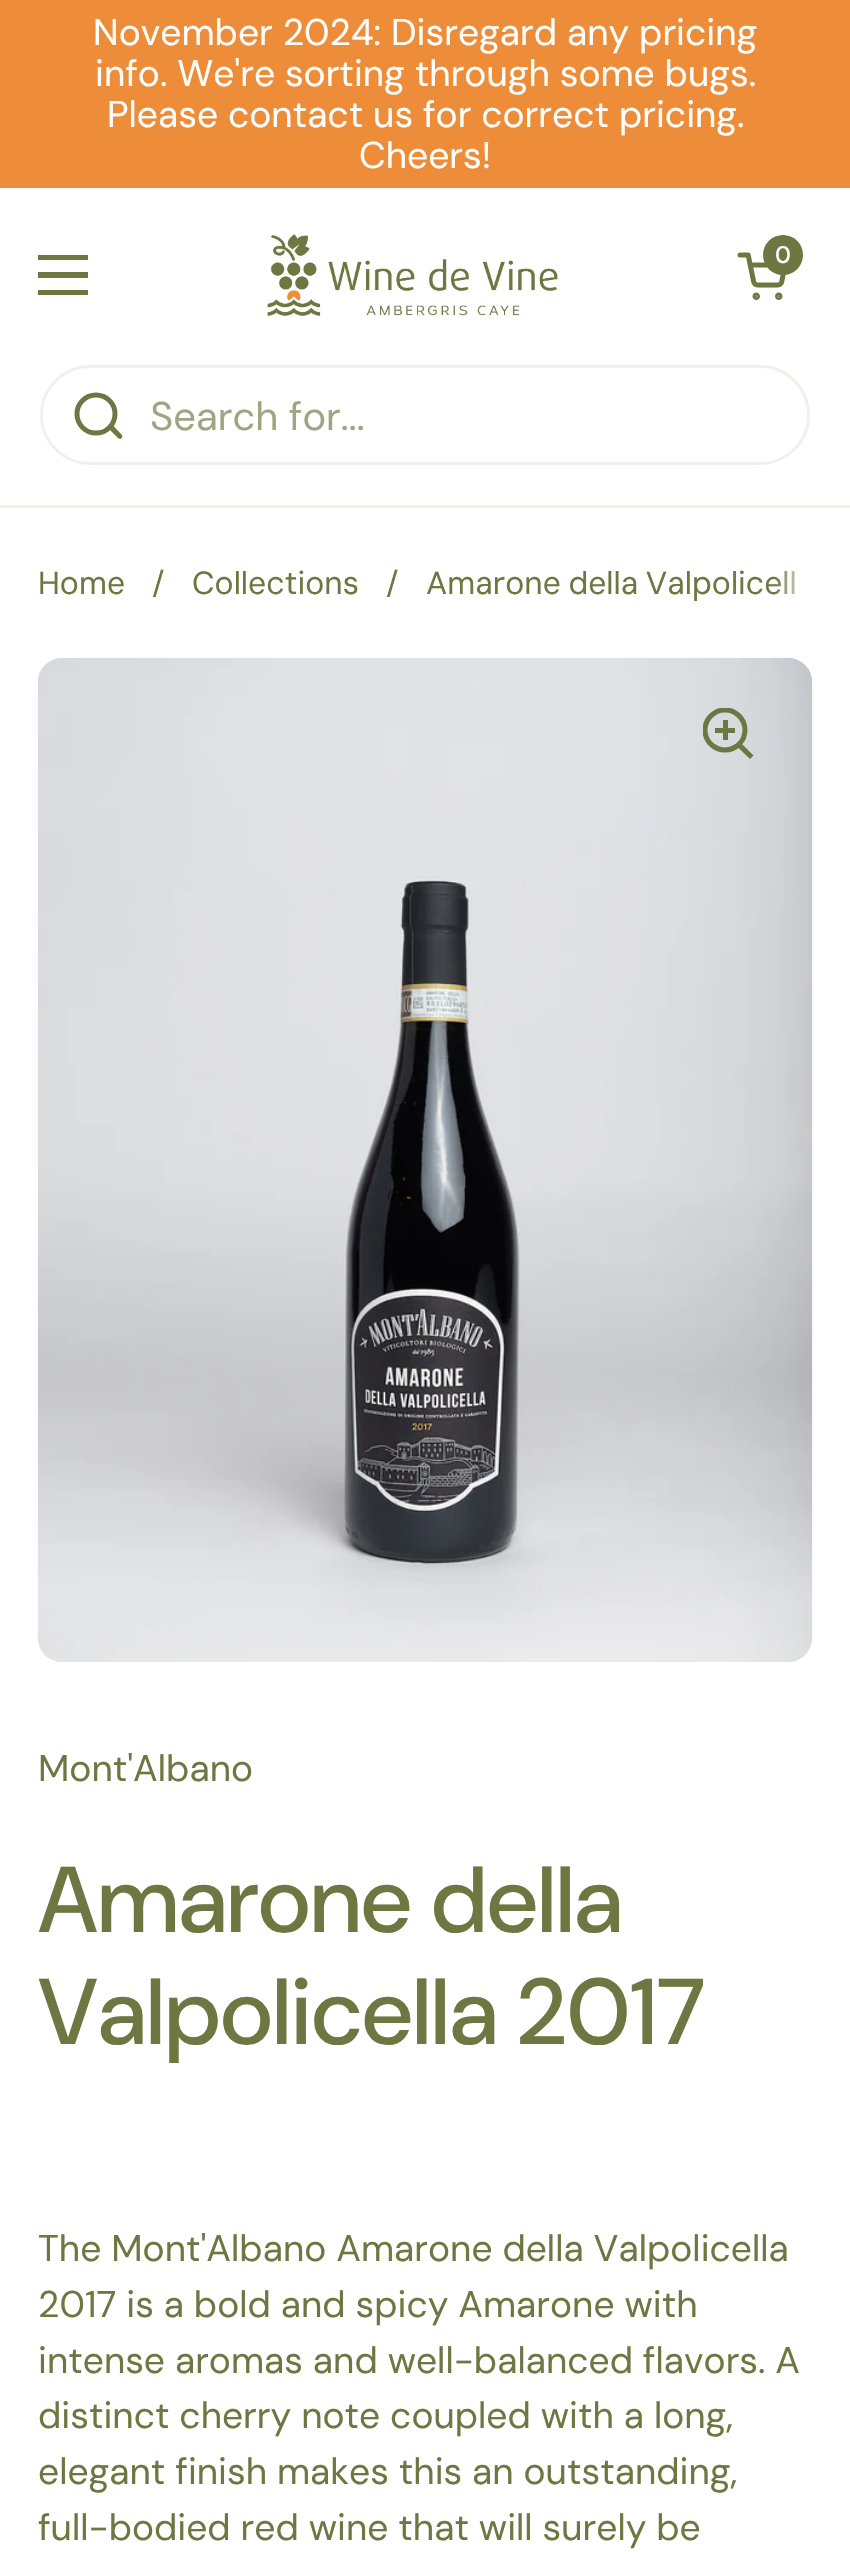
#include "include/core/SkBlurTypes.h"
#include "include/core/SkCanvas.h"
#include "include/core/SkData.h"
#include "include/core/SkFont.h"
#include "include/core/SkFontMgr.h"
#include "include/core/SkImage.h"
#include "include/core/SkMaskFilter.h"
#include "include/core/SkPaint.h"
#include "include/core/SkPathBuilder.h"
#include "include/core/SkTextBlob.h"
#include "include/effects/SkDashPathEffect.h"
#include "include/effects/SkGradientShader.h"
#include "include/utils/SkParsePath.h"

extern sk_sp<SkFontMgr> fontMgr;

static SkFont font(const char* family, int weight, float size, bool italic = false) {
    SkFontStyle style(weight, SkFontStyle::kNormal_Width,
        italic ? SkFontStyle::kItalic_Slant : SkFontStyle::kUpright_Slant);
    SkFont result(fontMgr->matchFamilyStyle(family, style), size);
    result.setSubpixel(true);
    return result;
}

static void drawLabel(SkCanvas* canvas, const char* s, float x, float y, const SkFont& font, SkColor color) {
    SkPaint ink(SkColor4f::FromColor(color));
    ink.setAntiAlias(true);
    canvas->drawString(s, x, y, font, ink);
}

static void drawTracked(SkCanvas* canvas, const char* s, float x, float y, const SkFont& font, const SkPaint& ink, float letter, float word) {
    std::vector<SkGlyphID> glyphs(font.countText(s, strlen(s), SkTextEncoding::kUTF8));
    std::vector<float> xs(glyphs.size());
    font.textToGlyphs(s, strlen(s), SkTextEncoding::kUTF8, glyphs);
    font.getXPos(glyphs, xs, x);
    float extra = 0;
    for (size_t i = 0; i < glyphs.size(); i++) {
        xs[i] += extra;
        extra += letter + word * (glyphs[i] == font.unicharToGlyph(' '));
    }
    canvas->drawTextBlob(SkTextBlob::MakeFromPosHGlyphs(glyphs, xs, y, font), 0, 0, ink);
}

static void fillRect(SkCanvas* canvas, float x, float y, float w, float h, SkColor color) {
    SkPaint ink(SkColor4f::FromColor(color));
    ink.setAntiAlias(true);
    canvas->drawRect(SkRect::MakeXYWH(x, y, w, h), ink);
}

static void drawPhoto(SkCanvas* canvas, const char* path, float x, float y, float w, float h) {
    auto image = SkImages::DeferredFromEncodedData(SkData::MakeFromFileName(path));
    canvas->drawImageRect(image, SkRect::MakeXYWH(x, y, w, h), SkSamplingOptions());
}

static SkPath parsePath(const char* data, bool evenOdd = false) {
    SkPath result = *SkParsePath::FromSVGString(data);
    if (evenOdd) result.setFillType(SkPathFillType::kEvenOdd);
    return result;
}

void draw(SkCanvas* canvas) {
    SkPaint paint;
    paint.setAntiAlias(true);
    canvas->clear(0xFFFFFFFF);
    fillRect(canvas, 0, 0, 850, 188, 0xFFED8D39);
    SkFont font1 = font("DM Sans", 400, 37.2f);
    drawLabel(canvas, "November 2024: Disregard any pricing", 93, 45, font1, 0xFFFFFFFF);
    drawLabel(canvas, "info. We're sorting through some bugs.", 95, 86, font1, 0xFFFFFFFF);
    drawLabel(canvas, "Please contact us for correct pricing.", 107, 127, font1, 0xFFFFFFFF);
    drawLabel(canvas, "Cheers!", 359, 168, font1, 0xFFFFFFFF);
    fillRect(canvas, 38, 255, 50, 5, 0xFF6E7742);
    fillRect(canvas, 38, 272, 50, 6, 0xFF6E7742);
    fillRect(canvas, 38, 290, 50, 5, 0xFF6E7742);
    drawPhoto(canvas, "assets/img1.png", 267, 234, 291, 82);
    drawPhoto(canvas, "assets/img2.png", 737, 252, 49, 48);
    paint.setColor(0xFF6E7742);
    canvas->drawCircle(783, 255, 20, paint);
    SkFont font2 = font("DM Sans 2", 500, 24);
    drawLabel(canvas, "0", 775, 263, font2, 0xFFFFFFFF);
    fillRect(canvas, 0, 505, 850, 3, 0xFFF1F1EC);
    paint.setStroke(true);
    paint.setStrokeWidth(3);
    paint.setColor(0xFFF1F1EC);
    canvas->drawRoundRect(SkRect::MakeXYWH(41.5f, 366.5f, 767, 97), 48.5f, 48.5f, paint);
    paint.setStrokeWidth(5);
    paint.setColor(0xFF6E7742);
    canvas->drawCircle(96, 414, 19, paint);
    paint.setStroke(false);
    canvas->drawPath(parsePath("M113 425.5L111 424L107.5 427.5L109.5 429.5ZM118 438C120.5 440.5 124 437 121.5 434.5ZM109.5 429.5L118 438L121.5 434.5L113 425.5Z"), paint);
    SkFont font3 = font("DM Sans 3", 400, 40);
    drawLabel(canvas, "Search for...", 150, 430, font3, 0xFF9FA582);
    SkFont font4 = font("DM Sans 2", 400, 31.9f);
    drawLabel(canvas, "Home", 38, 594, font4, 0xFF6E7742);
    drawLabel(canvas, "/", 152, 594, font4, 0xFF6E7742);
    drawLabel(canvas, "Collections", 192, 594, font4, 0xFF6E7742);
    drawLabel(canvas, "/", 386, 594, font4, 0xFF6E7742);
    drawTracked(canvas, "Amarone della Valpolicell", 426, 594, font4, paint, 0, -1);
    {
        const SkColor colors[] = {0xFFFFFFFF, 0x00FFFFFF};
        const float stops[] = {0.5f, 1};
        const SkPoint ends[] = {{850, 583}, {775, 583}};
        paint.setShader(SkGradientShader::MakeLinear(ends, colors, stops, 2, SkTileMode::kClamp));
        paint.setAlpha(255);
    }
    canvas->drawRect(SkRect::MakeXYWH(776, 571, 19, 23), paint);
    drawPhoto(canvas, "assets/img3.png", 37, 657, 776, 1005);
    canvas->save();
    canvas->clipRect(SkRect::MakeXYWH(703, 708, 52, 52));
    paint.setStroke(true);
    paint.setShader(nullptr);
    paint.setColor(0xFF6E7742);
    canvas->drawCircle(725, 730, 20, paint);
    canvas->restore();
    fillRect(canvas, 723, 720, 5, 20, 0xFF6E7742);
    fillRect(canvas, 715, 728, 20, 5, 0xFF6E7742);
    paint.setStroke(false);
    canvas->drawPath(parsePath("M738 747.5L742 744L753.5 755.5L750 759Z"), paint);
    drawLabel(canvas, "Mont'Albano", 38, 1781, font1, 0xFF6E7742);
    SkFont font5 = font("DM Sans", 500, 93.25f);
    drawLabel(canvas, "Amarone della", 38, 1932, font5, 0xFF6E7742);
    drawLabel(canvas, "Valpolicella 2017", 38, 2044, font5, 0xFF6E7742);
    drawLabel(canvas, "The Mont'Albano Amarone della Valpolicella", 38, 2261, font1, 0xFF6E7742);
    drawLabel(canvas, "2017 is a bold and spicy Amarone with", 38, 2317, font1, 0xFF6E7742);
    drawLabel(canvas, "intense aromas and well-balanced flavors. A", 38, 2373, font1, 0xFF6E7742);
    drawLabel(canvas, "distinct cherry note coupled with a long,", 38, 2428, font1, 0xFF6E7742);
    drawLabel(canvas, "elegant finish makes this an outstanding,", 38, 2484, font1, 0xFF6E7742);
    drawLabel(canvas, "full-bodied red wine that will surely be", 38, 2540, font1, 0xFF6E7742);
}
